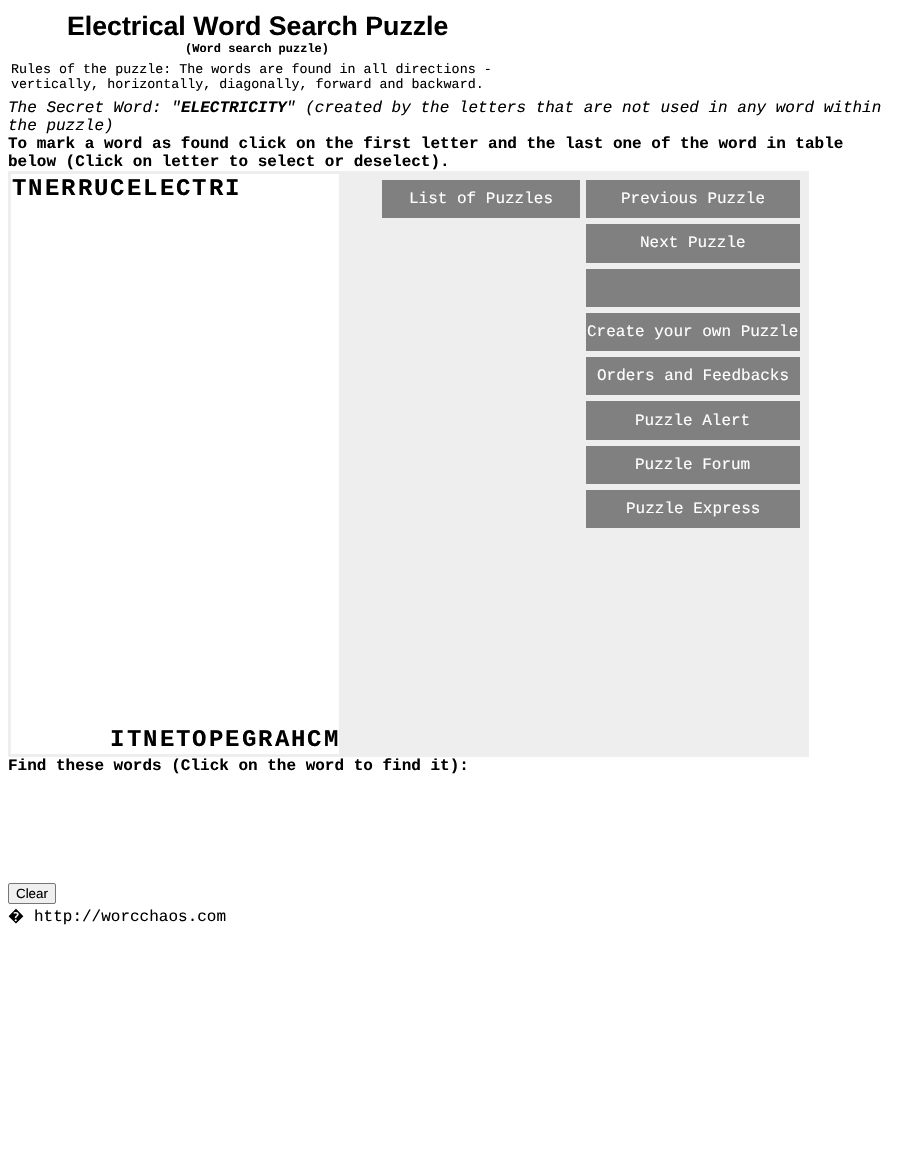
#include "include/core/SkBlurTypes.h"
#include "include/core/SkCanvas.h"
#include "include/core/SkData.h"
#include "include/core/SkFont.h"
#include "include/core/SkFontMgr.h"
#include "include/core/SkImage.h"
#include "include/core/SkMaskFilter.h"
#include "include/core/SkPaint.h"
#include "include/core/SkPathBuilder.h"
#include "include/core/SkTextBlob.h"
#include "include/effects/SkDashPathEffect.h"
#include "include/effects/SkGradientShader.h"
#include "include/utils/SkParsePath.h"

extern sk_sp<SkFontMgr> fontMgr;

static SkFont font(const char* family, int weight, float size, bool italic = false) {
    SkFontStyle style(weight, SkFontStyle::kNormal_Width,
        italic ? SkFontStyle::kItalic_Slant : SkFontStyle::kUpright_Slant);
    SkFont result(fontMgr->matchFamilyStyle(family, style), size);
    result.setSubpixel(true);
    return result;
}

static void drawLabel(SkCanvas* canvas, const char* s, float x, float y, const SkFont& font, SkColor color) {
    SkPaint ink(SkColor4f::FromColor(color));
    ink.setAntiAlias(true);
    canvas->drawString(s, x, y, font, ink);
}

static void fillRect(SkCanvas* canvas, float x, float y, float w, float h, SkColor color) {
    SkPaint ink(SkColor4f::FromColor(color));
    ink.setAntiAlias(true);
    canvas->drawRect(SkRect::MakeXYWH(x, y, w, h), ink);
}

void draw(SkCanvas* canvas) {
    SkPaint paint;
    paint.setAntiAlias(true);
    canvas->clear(0xFFFFFFFF);
    SkFont font1 = font("Liberation Sans", 700, 26.7f);
    drawLabel(canvas, "Electrical Word Search Puzzle", 67, 35, font1, 0xFF000000);
    SkFont font2 = font("Liberation Mono", 700, 12);
    drawLabel(canvas, "(Word search puzzle)", 185, 52, font2, 0xFF000000);
    SkFont font3 = font("Liberation Mono", 400, 13.35f);
    drawLabel(canvas, "Rules of the puzzle: The words are found in all directions -", 11, 73, font3, 0xFF000000);
    drawLabel(canvas, "vertically, horizontally, diagonally, forward and backward.", 11, 88, font3, 0xFF000000);
    SkFont font4 = font("Liberation Mono", 400, 16, true);
    drawLabel(canvas, "The Secret Word: \"", 8, 112, font4, 0xFF000000);
    SkFont font5 = font("Liberation Mono", 700, 16, true);
    drawLabel(canvas, "ELECTRICITY", 181, 112, font5, 0xFF000000);
    drawLabel(canvas, "\" (created by the letters that are not used in any word within", 286, 112, font4, 0xFF000000);
    drawLabel(canvas, "the puzzle)", 8, 130, font4, 0xFF000000);
    SkFont font6 = font("Liberation Mono", 700, 16);
    drawLabel(canvas, "To mark a word as found click on the first letter and the last one of the word in table", 8, 148, font6, 0xFF000000);
    drawLabel(canvas, "below (Click on letter to select or deselect).", 8, 166, font6, 0xFF000000);
    fillRect(canvas, 8, 171, 801, 586, 0xFFEEEEEE);
    fillRect(canvas, 11, 174, 328, 580, 0xFFFFFFFF);
    SkFont font7 = font("Liberation Mono", 700, 24);
    drawLabel(canvas, "T", 12, 195, font7, 0xFF000000);
    drawLabel(canvas, "N", 28, 195, font7, 0xFF000000);
    drawLabel(canvas, "E", 45, 195, font7, 0xFF000000);
    drawLabel(canvas, "R", 61, 195, font7, 0xFF000000);
    drawLabel(canvas, "R", 78, 195, font7, 0xFF000000);
    drawLabel(canvas, "U", 94, 195, font7, 0xFF000000);
    drawLabel(canvas, "C", 110, 195, font7, 0xFF000000);
    drawLabel(canvas, "E", 127, 195, font7, 0xFF000000);
    drawLabel(canvas, "L", 143, 195, font7, 0xFF000000);
    drawLabel(canvas, "E", 160, 195, font7, 0xFF000000);
    drawLabel(canvas, "C", 176, 195, font7, 0xFF000000);
    drawLabel(canvas, "T", 192, 195, font7, 0xFF000000);
    drawLabel(canvas, "R", 209, 195, font7, 0xFF000000);
    drawLabel(canvas, "I", 225, 195, font7, 0xFF000000);
    drawLabel(canvas, "I", 110, 746, font7, 0xFF000000);
    drawLabel(canvas, "T", 127, 746, font7, 0xFF000000);
    drawLabel(canvas, "N", 143, 746, font7, 0xFF000000);
    drawLabel(canvas, "E", 160, 746, font7, 0xFF000000);
    drawLabel(canvas, "T", 176, 746, font7, 0xFF000000);
    drawLabel(canvas, "O", 192, 746, font7, 0xFF000000);
    drawLabel(canvas, "P", 209, 746, font7, 0xFF000000);
    drawLabel(canvas, "E", 225, 746, font7, 0xFF000000);
    drawLabel(canvas, "G", 242, 746, font7, 0xFF000000);
    drawLabel(canvas, "R", 258, 746, font7, 0xFF000000);
    drawLabel(canvas, "A", 275, 746, font7, 0xFF000000);
    drawLabel(canvas, "H", 291, 746, font7, 0xFF000000);
    drawLabel(canvas, "C", 307, 746, font7, 0xFF000000);
    drawLabel(canvas, "M", 324, 746, font7, 0xFF000000);
    fillRect(canvas, 382, 180, 198, 38, 0xFF808080);
    SkFont font8 = font("Liberation Mono", 400, 16);
    drawLabel(canvas, "List of Puzzles", 409, 203, font8, 0xFFFFFFFF);
    fillRect(canvas, 586, 180, 214, 38, 0xFF808080);
    drawLabel(canvas, "Previous Puzzle", 621, 203, font8, 0xFFFFFFFF);
    fillRect(canvas, 586, 224, 214, 39, 0xFF808080);
    drawLabel(canvas, "Next Puzzle", 640, 247, font8, 0xFFFFFFFF);
    fillRect(canvas, 586, 269, 214, 38, 0xFF808080);
    fillRect(canvas, 586, 313, 214, 38, 0xFF808080);
    drawLabel(canvas, "Create your own Puzzle", 587, 336, font8, 0xFFFFFFFF);
    fillRect(canvas, 586, 357, 214, 38, 0xFF808080);
    drawLabel(canvas, "Orders and Feedbacks", 597, 380, font8, 0xFFFFFFFF);
    fillRect(canvas, 586, 401, 214, 39, 0xFF808080);
    drawLabel(canvas, "Puzzle Alert", 635, 425, font8, 0xFFFFFFFF);
    fillRect(canvas, 586, 446, 214, 38, 0xFF808080);
    drawLabel(canvas, "Puzzle Forum", 635, 469, font8, 0xFFFFFFFF);
    fillRect(canvas, 586, 490, 214, 38, 0xFF808080);
    drawLabel(canvas, "Puzzle Express", 626, 513, font8, 0xFFFFFFFF);
    drawLabel(canvas, "Find these words (Click on the word to find it):", 8, 770, font6, 0xFF000000);
    paint.setColor(0xFFEFEFEF);
    canvas->drawRoundRect(SkRect::MakeXYWH(8.5f, 883.5f, 47, 20), 1.5f, 1.5f, paint);
    paint.setStroke(true);
    paint.setStrokeWidth(1);
    paint.setColor(0xFF767676);
    canvas->drawRoundRect(SkRect::MakeXYWH(8.5f, 883.5f, 47, 20), 1.5f, 1.5f, paint);
    SkFont font9 = font("Liberation Sans", 400, 13.35f);
    drawLabel(canvas, "Clear", 16, 898, font9, 0xFF000000);
    SkFont font10 = font("Noto Sans", 400, 16);
    drawLabel(canvas, "�", 8, 921, font10, 0xFF000000);
    drawLabel(canvas, "http://worcchaos.com", 34, 921, font8, 0xFF000000);
}
